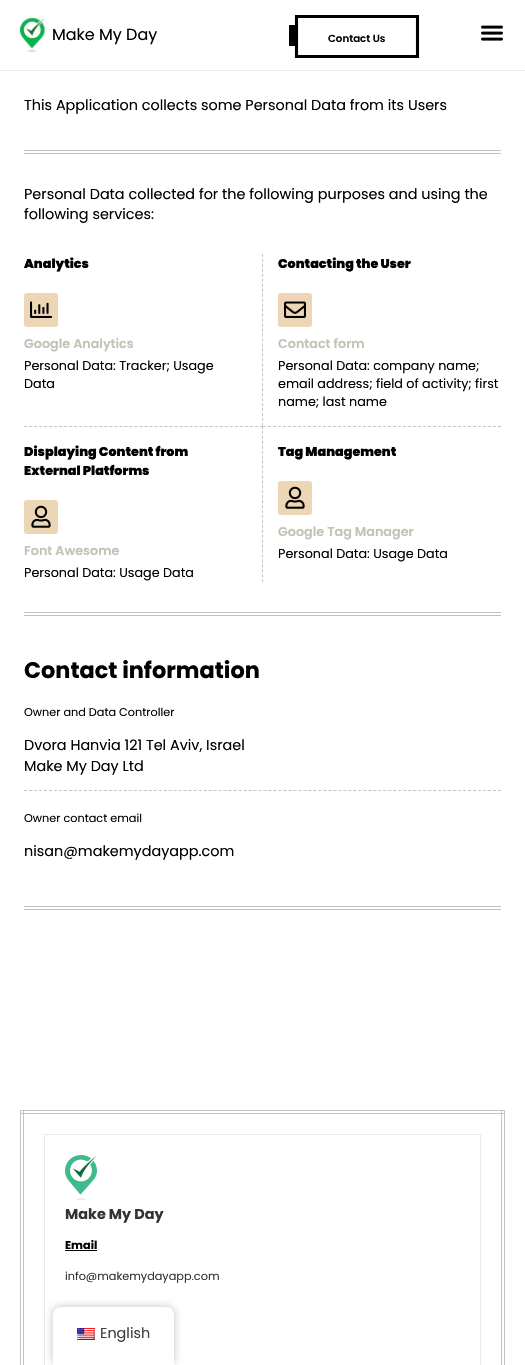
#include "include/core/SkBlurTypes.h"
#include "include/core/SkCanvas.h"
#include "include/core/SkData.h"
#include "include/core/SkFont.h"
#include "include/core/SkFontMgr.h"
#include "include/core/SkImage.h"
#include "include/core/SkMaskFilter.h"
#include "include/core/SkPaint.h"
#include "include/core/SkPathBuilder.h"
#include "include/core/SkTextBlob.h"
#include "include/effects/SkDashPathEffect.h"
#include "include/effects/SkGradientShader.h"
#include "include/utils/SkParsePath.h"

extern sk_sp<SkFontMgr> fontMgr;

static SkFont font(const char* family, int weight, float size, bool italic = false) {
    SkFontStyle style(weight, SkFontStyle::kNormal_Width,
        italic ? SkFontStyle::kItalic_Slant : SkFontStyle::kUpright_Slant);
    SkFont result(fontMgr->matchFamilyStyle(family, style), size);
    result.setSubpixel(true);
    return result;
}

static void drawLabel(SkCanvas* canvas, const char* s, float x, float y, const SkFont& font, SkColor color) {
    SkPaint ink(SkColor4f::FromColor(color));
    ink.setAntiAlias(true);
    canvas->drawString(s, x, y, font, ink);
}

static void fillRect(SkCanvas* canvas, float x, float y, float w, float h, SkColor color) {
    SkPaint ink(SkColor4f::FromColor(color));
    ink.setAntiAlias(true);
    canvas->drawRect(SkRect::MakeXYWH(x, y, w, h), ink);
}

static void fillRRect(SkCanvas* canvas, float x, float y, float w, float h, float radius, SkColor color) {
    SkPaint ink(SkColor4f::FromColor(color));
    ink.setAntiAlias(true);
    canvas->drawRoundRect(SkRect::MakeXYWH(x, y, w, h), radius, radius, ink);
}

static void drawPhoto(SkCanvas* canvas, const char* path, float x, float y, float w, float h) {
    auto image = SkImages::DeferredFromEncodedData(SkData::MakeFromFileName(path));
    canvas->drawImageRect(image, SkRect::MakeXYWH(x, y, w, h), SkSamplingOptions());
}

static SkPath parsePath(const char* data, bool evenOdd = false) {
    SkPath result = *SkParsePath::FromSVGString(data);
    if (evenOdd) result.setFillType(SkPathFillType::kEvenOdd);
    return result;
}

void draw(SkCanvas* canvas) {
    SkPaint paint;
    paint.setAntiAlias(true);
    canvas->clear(0xFFFFFFFF);
    fillRect(canvas, 0, 70, 525, 1, 0xFFEAE9E9);
    drawPhoto(canvas, "assets/img1.png", 20, 17, 25, 35);
    SkFont font1 = font("Poppins", 400, 16);
    drawLabel(canvas, "Make My Day", 52, 40, font1, 0xFF000000);
    paint.setStroke(true);
    paint.setStrokeWidth(3.1f);
    paint.setColor(0xFF000000);
    canvas->drawPath(parsePath("M417.5 16.5V56.5H296.5V16.5Z"), paint);
    fillRect(canvas, 289, 25, 6, 21, 0xFF000000);
    SkFont font2 = font("Poppins", 600, 10.25f);
    drawLabel(canvas, "Contact Us", 328, 42, font2, 0xFF000000);
    drawPhoto(canvas, "assets/img2.png", 481, 25, 22, 16);
    SkFont font3 = font("Poppins", 400, 14.4f);
    drawLabel(canvas, "This Application collects some Personal Data from its Users", 24, 110, font3, 0xFF000000);
    fillRect(canvas, 24, 150, 477, 1, 0xFFC1C3B5);
    fillRect(canvas, 24, 153, 477, 1, 0xFFC1C3B5);
    fillRect(canvas, 24, 612, 477, 1, 0xFFC1C3B5);
    fillRect(canvas, 24, 615, 477, 1, 0xFFC1C3B5);
    drawLabel(canvas, "Personal Data collected for the following purposes and using the", 24, 199, font3, 0xFF000000);
    drawLabel(canvas, "following services:", 24, 219, font3, 0xFF000000);
    paint.setStrokeWidth(1);
    paint.setColor(0xFFC5C3C3);
    paint.setPathEffect(SkDashPathEffect::Make({{3, 1.97f}}, 0));
    canvas->drawPath(parsePath("M262.5 254V426"), paint);
    paint.setPathEffect(nullptr);
    SkFont font4 = font("Poppins", 900, 12.75f);
    drawLabel(canvas, "Analytics", 24, 268, font4, 0xFF000000);
    fillRRect(canvas, 24, 293, 34, 34, 3, 0xFFEDD6B6);
    drawPhoto(canvas, "assets/img3.png", 30, 301, 22, 17);
    SkFont font5 = font("Poppins", 600, 12.75f);
    drawLabel(canvas, "Google Analytics", 24, 348, font5, 0xFFC1C3B5);
    SkFont font6 = font("Poppins", 400, 12.75f);
    drawLabel(canvas, "Personal Data: Tracker; Usage", 24, 370, font6, 0xFF000000);
    drawLabel(canvas, "Data", 24, 388, font6, 0xFF000000);
    drawLabel(canvas, "Contacting the User", 278, 268, font4, 0xFF000000);
    fillRRect(canvas, 278, 293, 34, 34, 3, 0xFFEDD6B6);
    drawPhoto(canvas, "assets/img4.png", 284, 301, 22, 17);
    drawLabel(canvas, "Contact form", 278, 348, font5, 0xFFC1C3B5);
    drawLabel(canvas, "Personal Data: company name;", 278, 370, font6, 0xFF000000);
    drawLabel(canvas, "email address; field of activity; first", 278, 388, font6, 0xFF000000);
    drawLabel(canvas, "name; last name", 278, 406, font6, 0xFF000000);
    paint.setPathEffect(SkDashPathEffect::Make({{3, 2.02f}}, 0));
    canvas->drawPath(parsePath("M24 426.5H263"), paint);
    paint.setPathEffect(nullptr);
    paint.setPathEffect(SkDashPathEffect::Make({{3, 1.94f}}, 0));
    canvas->drawPath(parsePath("M262.5 426V582"), paint);
    paint.setPathEffect(nullptr);
    drawLabel(canvas, "Displaying Content from", 24, 456, font4, 0xFF000000);
    drawLabel(canvas, "External Platforms", 24, 475, font4, 0xFF000000);
    fillRRect(canvas, 24, 500, 34, 34, 3, 0xFFEDD6B6);
    drawPhoto(canvas, "assets/img5.png", 31, 505, 20, 23);
    drawLabel(canvas, "Font Awesome", 24, 555, font5, 0xFFC1C3B5);
    drawLabel(canvas, "Personal Data: Usage Data", 24, 577, font6, 0xFF000000);
    paint.setPathEffect(SkDashPathEffect::Make({{3, 2}}, 0));
    canvas->drawPath(parsePath("M263 426.5H501"), paint);
    paint.setPathEffect(nullptr);
    drawLabel(canvas, "Tag Management", 278, 456, font4, 0xFF000000);
    fillRRect(canvas, 278, 481, 34, 34, 3, 0xFFEDD6B6);
    drawPhoto(canvas, "assets/img5.png", 285, 486, 20, 23);
    drawLabel(canvas, "Google Tag Manager", 278, 536, font5, 0xFFC1C3B5);
    drawLabel(canvas, "Personal Data: Usage Data", 278, 558, font6, 0xFF000000);
    fillRect(canvas, 24, 906, 477, 1, 0xFFC1C3B5);
    fillRect(canvas, 24, 909, 477, 1, 0xFFC1C3B5);
    SkFont font7 = font("Poppins", 700, 22.4f);
    drawLabel(canvas, "Contact information", 24, 678, font7, 0xFF000000);
    paint.setPathEffect(SkDashPathEffect::Make({{3, 1.99f}}, 0));
    canvas->drawPath(parsePath("M24 790.5H501"), paint);
    paint.setPathEffect(nullptr);
    SkFont font8 = font("Poppins", 400, 11.25f);
    drawLabel(canvas, "Owner and Data Controller", 24, 716, font8, 0xFF000000);
    drawLabel(canvas, "Dvora Hanvia 121 Tel Aviv, Israel", 24, 750, font3, 0xFF000000);
    drawLabel(canvas, "Make My Day Ltd", 24, 771, font3, 0xFF000000);
    drawLabel(canvas, "Owner contact email", 24, 822, font8, 0xFF000000);
    drawLabel(canvas, "nisan@makemydayapp.com", 24, 856, font3, 0xFF000000);
    fillRect(canvas, 20, 1110, 485, 1, 0xFFC5C3C3);
    fillRect(canvas, 20, 1113, 485, 1, 0xFFC5C3C3);
    fillRect(canvas, 501, 1110, 1, 255, 0xFFC5C3C3);
    fillRect(canvas, 504, 1110, 1, 255, 0xFFC5C3C3);
    fillRect(canvas, 20, 1110, 1, 255, 0xFFC5C3C3);
    fillRect(canvas, 23, 1110, 1, 255, 0xFFC5C3C3);
    paint.setColor(0xFFEAE9E9);
    canvas->drawRect(SkRect::MakeXYWH(44.5f, 1134.5f, 436, 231), paint);
    drawPhoto(canvas, "assets/img6.png", 65, 1155, 32, 45);
    SkFont font9 = font("Poppins", 700, 14.4f);
    drawLabel(canvas, "Make My Day", 65, 1219, font9, 0xFF333333);
    SkFont font10 = font("Poppins", 700, 11.25f);
    drawLabel(canvas, "Email", 65, 1249, font10, 0xFF000000);
    fillRect(canvas, 65, 1250, 32, 1, 0xFF000000);
    drawLabel(canvas, "info@makemydayapp.com", 65, 1280, font8, 0xFF333333);
    paint.setStroke(false);
    paint.setColor(0x40000000);
    paint.setMaskFilter(SkMaskFilter::MakeBlur(kNormal_SkBlurStyle, 4));
    canvas->drawRoundRect(SkRect::MakeXYWH(53, 1307, 121, 58), 8, 8, paint);
    paint.setMaskFilter(nullptr);
    paint.setColor(0xFFFFFFFF);
    canvas->drawPath(parsePath("M61 1307H166C170.5 1307 174 1310.5 174 1315V1365H53V1315C53 1310.5 56.5 1307 61 1307Z"), paint);
    drawPhoto(canvas, "assets/img7.png", 77, 1328, 18, 12);
    drawLabel(canvas, "English", 100, 1338, font3, 0xFF404040);
}
